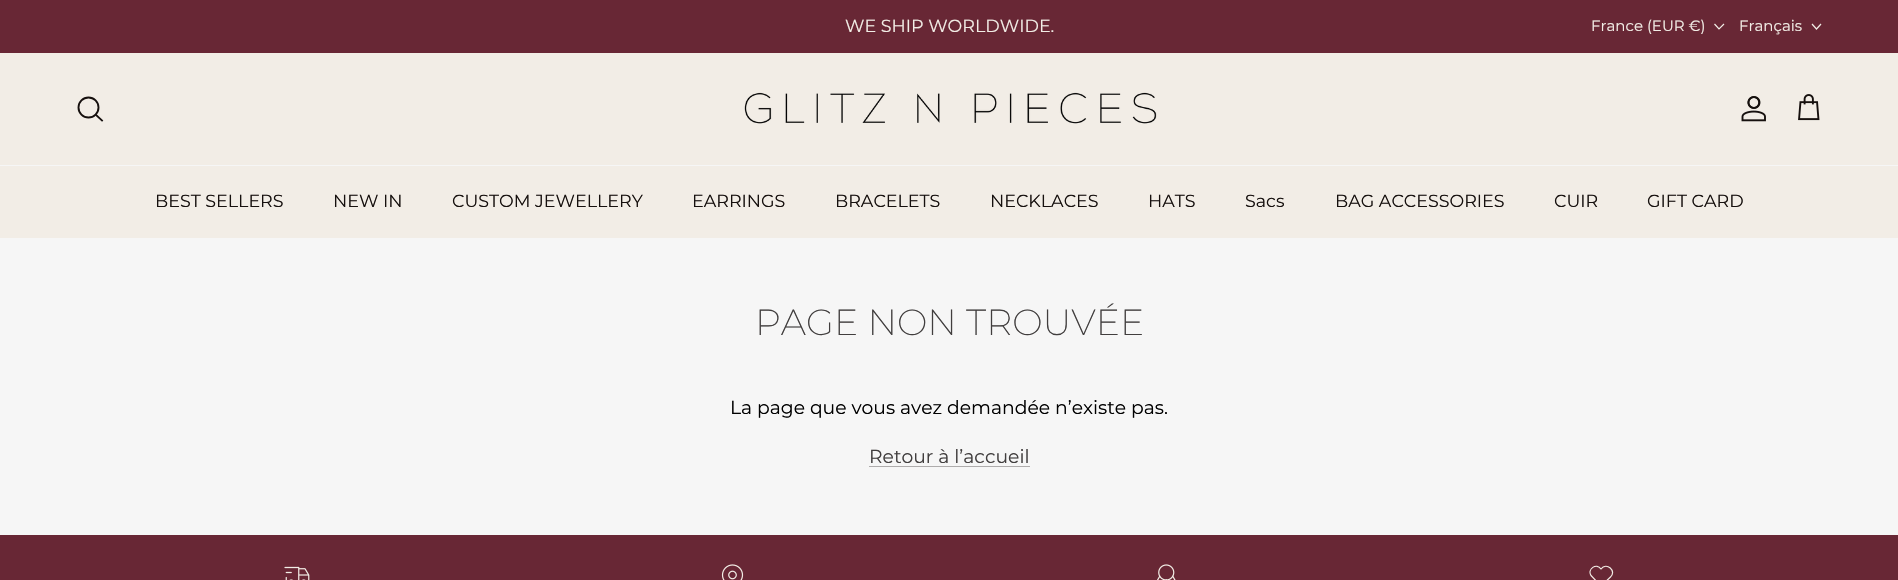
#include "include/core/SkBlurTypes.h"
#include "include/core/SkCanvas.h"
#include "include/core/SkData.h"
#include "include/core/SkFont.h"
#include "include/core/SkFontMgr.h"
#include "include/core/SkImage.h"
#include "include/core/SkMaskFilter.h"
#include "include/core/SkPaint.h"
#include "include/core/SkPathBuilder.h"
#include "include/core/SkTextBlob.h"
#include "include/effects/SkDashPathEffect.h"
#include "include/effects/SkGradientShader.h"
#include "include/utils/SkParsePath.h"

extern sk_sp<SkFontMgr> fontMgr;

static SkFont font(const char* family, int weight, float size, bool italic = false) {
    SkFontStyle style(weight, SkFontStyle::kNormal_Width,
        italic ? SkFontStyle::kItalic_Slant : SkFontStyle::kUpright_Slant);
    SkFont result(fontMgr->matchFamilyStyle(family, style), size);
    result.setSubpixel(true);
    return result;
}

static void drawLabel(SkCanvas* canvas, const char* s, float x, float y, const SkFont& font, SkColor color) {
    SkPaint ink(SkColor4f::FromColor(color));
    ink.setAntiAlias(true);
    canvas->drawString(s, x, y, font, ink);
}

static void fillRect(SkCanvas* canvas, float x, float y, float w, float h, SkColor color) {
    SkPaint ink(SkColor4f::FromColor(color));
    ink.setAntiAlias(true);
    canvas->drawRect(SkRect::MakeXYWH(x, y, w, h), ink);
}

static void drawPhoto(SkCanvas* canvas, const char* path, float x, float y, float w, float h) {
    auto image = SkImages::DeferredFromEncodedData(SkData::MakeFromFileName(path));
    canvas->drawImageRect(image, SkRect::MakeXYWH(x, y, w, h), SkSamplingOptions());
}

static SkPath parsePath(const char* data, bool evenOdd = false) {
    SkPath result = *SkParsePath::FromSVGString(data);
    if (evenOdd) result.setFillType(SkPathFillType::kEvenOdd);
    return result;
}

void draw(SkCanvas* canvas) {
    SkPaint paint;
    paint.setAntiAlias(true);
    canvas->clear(0xFFF6F6F6);
    fillRect(canvas, 0, 0, 1898, 53, 0xFF682735);
    SkFont font1 = font("Montserrat", 400, 17.5f);
    drawLabel(canvas, "WE SHIP WORLDWIDE.", 845, 32, font1, 0xFFF2EDE6);
    SkFont font2 = font("Montserrat", 400, 15);
    drawLabel(canvas, "France (EUR €)", 1591, 31, font2, 0xFFF2EDE6);
    paint.setStroke(true);
    paint.setStrokeWidth(1.2f);
    paint.setColor(0xFFF2EDE6);
    canvas->drawPath(parsePath("M1724 24L1719 29L1714.5 24"), paint);
    drawLabel(canvas, "Français", 1739, 31, font2, 0xFFF2EDE6);
    canvas->drawPath(parsePath("M1821 24L1816.5 29L1812 24"), paint);
    fillRect(canvas, 0, 53, 1898, 112, 0xFFF2EDE6);
    paint.setStrokeWidth(1.9f);
    paint.setColor(0xFF16100E);
    canvas->drawCircle(88.5f, 107.5f, 10, paint);
    paint.setStrokeCap(SkPaint::kSquare_Cap);
    canvas->drawPath(parsePath("M96 115L102 120.5"), paint);
    drawPhoto(canvas, "assets/img1.png", 744, 92, 413, 32);
    drawPhoto(canvas, "assets/img2.png", 1741, 96, 25, 26);
    drawPhoto(canvas, "assets/img3.png", 1798, 94, 22, 27);
    fillRect(canvas, 0, 166, 1898, 72, 0xFFF2EDE6);
    drawLabel(canvas, "BEST SELLERS", 155, 207, font1, 0xFF16100E);
    drawLabel(canvas, "NEW IN", 333, 207, font1, 0xFF16100E);
    drawLabel(canvas, "CUSTOM JEWELLERY", 452, 207, font1, 0xFF16100E);
    drawLabel(canvas, "EARRINGS", 692, 207, font1, 0xFF16100E);
    drawLabel(canvas, "BRACELETS", 835, 207, font1, 0xFF16100E);
    drawLabel(canvas, "NECKLACES", 990, 207, font1, 0xFF16100E);
    drawLabel(canvas, "HATS", 1148, 207, font1, 0xFF16100E);
    drawLabel(canvas, "Sacs", 1245, 207, font1, 0xFF16100E);
    drawLabel(canvas, "BAG ACCESSORIES", 1335, 207, font1, 0xFF16100E);
    drawLabel(canvas, "CUIR", 1554, 207, font1, 0xFF16100E);
    drawLabel(canvas, "GIFT CARD", 1647, 207, font1, 0xFF16100E);
    SkFont font3 = font("Montserrat", 200, 36.25f);
    drawLabel(canvas, "PAGE NON TROUVÉE", 755, 335, font3, 0xFF413E3E);
    SkFont font4 = font("Montserrat", 400, 18.75f);
    drawLabel(canvas, "La page que vous avez demandée n’existe pas.", 730, 414, font4, 0xFF000000);
    drawLabel(canvas, "Retour à l’accueil", 869, 463, font4, 0xFF413E3E);
    fillRect(canvas, 869, 466, 161, 1, 0xFFAEACAC);
    fillRect(canvas, 0, 535, 1898, 45, 0xFF682735);
    drawPhoto(canvas, "assets/img4.png", 284, 566, 26, 14);
    drawPhoto(canvas, "assets/img5.png", 721, 564, 23, 16);
    drawPhoto(canvas, "assets/img6.png", 1157, 564, 19, 16);
    paint.setStrokeWidth(1.2f);
    paint.setStrokeCap(SkPaint::kRound_Cap);
    paint.setStrokeJoin(SkPaint::kRound_Join);
    paint.setColor(0xFFF2EDE6);
    canvas->drawPath(parsePath("M1610.5 577L1601 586L1591 575.5C1587 569 1596.5 562.5 1601 569C1606.5 561.5 1617 571 1610.5 577"), paint);
}
